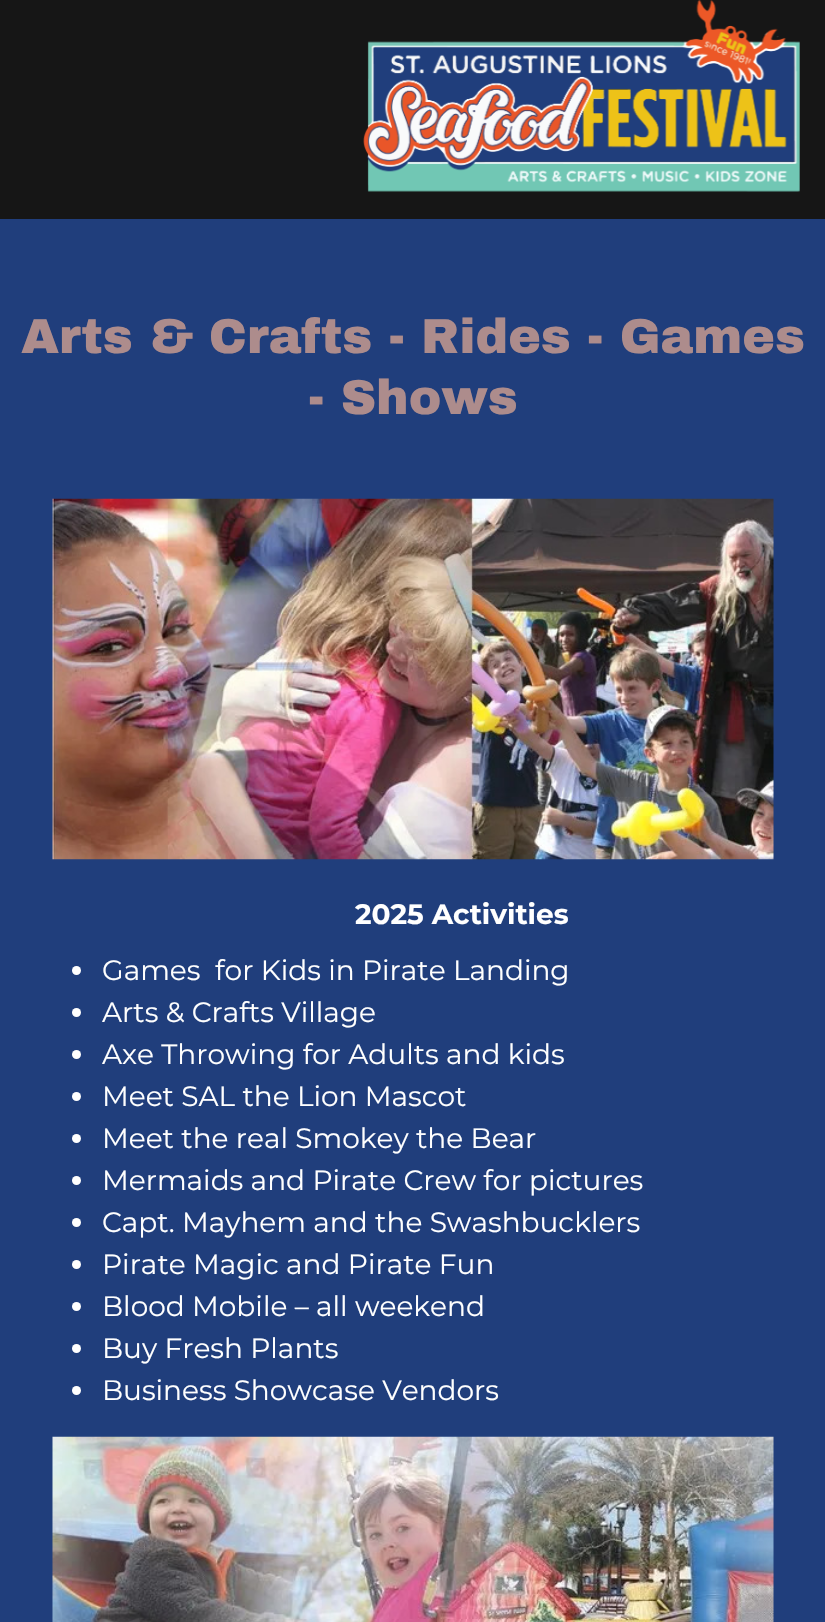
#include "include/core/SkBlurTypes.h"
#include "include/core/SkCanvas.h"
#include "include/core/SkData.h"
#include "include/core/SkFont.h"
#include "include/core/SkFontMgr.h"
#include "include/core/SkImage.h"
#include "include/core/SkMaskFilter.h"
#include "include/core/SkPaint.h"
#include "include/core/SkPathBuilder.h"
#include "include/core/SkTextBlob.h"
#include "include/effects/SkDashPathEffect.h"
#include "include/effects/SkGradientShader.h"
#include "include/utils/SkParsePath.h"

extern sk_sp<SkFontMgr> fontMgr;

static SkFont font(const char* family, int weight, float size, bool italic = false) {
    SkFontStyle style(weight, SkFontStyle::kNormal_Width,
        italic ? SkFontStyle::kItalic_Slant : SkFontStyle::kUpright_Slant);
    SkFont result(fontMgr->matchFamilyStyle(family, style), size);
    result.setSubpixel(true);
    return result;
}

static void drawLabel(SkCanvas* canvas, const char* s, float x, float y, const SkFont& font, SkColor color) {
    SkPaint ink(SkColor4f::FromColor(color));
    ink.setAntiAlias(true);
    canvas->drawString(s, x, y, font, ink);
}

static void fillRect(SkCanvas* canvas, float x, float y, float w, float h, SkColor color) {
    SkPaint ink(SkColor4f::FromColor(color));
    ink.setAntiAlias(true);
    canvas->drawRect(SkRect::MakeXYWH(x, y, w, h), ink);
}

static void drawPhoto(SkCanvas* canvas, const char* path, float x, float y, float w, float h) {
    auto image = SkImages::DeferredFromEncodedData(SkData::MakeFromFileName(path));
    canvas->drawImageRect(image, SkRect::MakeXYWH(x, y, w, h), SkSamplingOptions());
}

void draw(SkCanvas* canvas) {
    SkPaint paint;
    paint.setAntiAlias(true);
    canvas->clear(0xFF203E7C);
    fillRect(canvas, 0, 0, 825, 219, 0xFF161616);
    drawPhoto(canvas, "assets/img1.png", 363, 0, 437, 192);
    SkFont font1 = font("Archivo Black", 900, 49);
    drawLabel(canvas, "Arts & Crafts - Rides - Games", 21, 353, font1, 0xFFAD8C8C);
    drawLabel(canvas, "- Shows", 308, 414, font1, 0xFFAD8C8C);
    drawPhoto(canvas, "assets/img2.png", 52, 498, 722, 362);
    SkFont font2 = font("Montserrat", 700, 28);
    drawLabel(canvas, "2025 Activities", 355, 924, font2, 0xFFFFFFFF);
    paint.setColor(0xFFFFFFFF);
    canvas->drawCircle(76.5f, 970.5f, 4.5f, paint);
    SkFont font3 = font("Montserrat", 400, 28);
    drawLabel(canvas, "Games  for Kids in Pirate Landing", 102, 980, font3, 0xFFFFFFFF);
    canvas->drawCircle(76.5f, 1012.5f, 4.5f, paint);
    drawLabel(canvas, "Arts & Crafts Village", 102, 1022, font3, 0xFFFFFFFF);
    canvas->drawCircle(76.5f, 1054.5f, 4.5f, paint);
    drawLabel(canvas, "Axe Throwing for Adults and kids", 102, 1064, font3, 0xFFFFFFFF);
    canvas->drawCircle(76.5f, 1096.5f, 4.5f, paint);
    drawLabel(canvas, "Meet SAL the Lion Mascot", 102, 1106, font3, 0xFFFFFFFF);
    canvas->drawCircle(76.5f, 1138.5f, 4.5f, paint);
    drawLabel(canvas, "Meet the real Smokey the Bear", 102, 1148, font3, 0xFFFFFFFF);
    canvas->drawCircle(76.5f, 1180.5f, 4.5f, paint);
    drawLabel(canvas, "Mermaids and Pirate Crew for pictures", 102, 1190, font3, 0xFFFFFFFF);
    canvas->drawCircle(76.5f, 1222.5f, 4.5f, paint);
    drawLabel(canvas, "Capt. Mayhem and the Swashbucklers", 102, 1232, font3, 0xFFFFFFFF);
    canvas->drawCircle(76.5f, 1264.5f, 4.5f, paint);
    drawLabel(canvas, "Pirate Magic and Pirate Fun", 102, 1274, font3, 0xFFFFFFFF);
    canvas->drawCircle(76.5f, 1306.5f, 4.5f, paint);
    drawLabel(canvas, "Blood Mobile – all weekend", 102, 1316, font3, 0xFFFFFFFF);
    canvas->drawCircle(76.5f, 1348.5f, 4.5f, paint);
    drawLabel(canvas, "Buy Fresh Plants", 102, 1358, font3, 0xFFFFFFFF);
    canvas->drawCircle(76.5f, 1390.5f, 4.5f, paint);
    drawLabel(canvas, "Business Showcase Vendors", 102, 1400, font3, 0xFFFFFFFF);
    drawPhoto(canvas, "assets/img3.png", 52, 1436, 722, 186);
}
